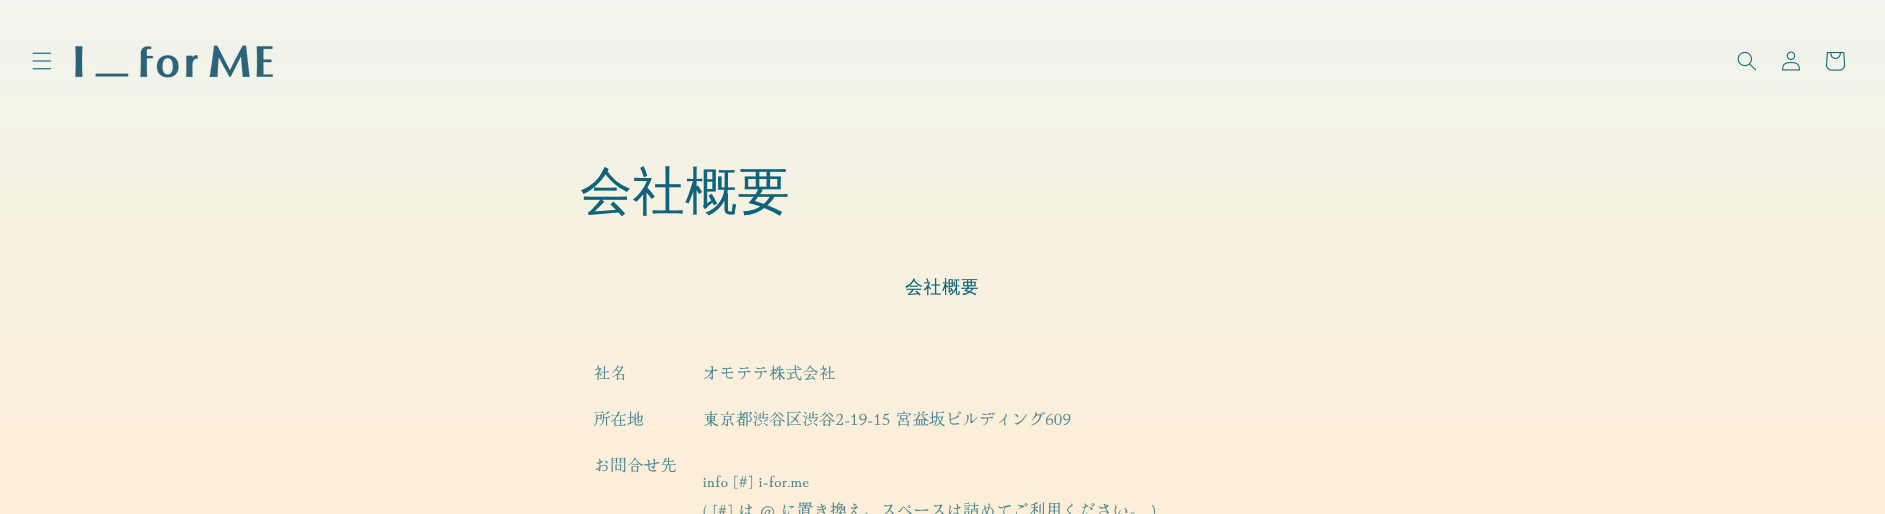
#include "include/core/SkBlurTypes.h"
#include "include/core/SkCanvas.h"
#include "include/core/SkData.h"
#include "include/core/SkFont.h"
#include "include/core/SkFontMgr.h"
#include "include/core/SkImage.h"
#include "include/core/SkMaskFilter.h"
#include "include/core/SkPaint.h"
#include "include/core/SkPathBuilder.h"
#include "include/core/SkTextBlob.h"
#include "include/effects/SkDashPathEffect.h"
#include "include/effects/SkGradientShader.h"
#include "include/utils/SkParsePath.h"

extern sk_sp<SkFontMgr> fontMgr;

static SkFont font(const char* family, int weight, float size, bool italic = false) {
    SkFontStyle style(weight, SkFontStyle::kNormal_Width,
        italic ? SkFontStyle::kItalic_Slant : SkFontStyle::kUpright_Slant);
    SkFont result(fontMgr->matchFamilyStyle(family, style), size);
    result.setSubpixel(true);
    return result;
}

static void drawTracked(SkCanvas* canvas, const char* s, float x, float y, const SkFont& font, const SkPaint& ink, float letter, float word) {
    std::vector<SkGlyphID> glyphs(font.countText(s, strlen(s), SkTextEncoding::kUTF8));
    std::vector<float> xs(glyphs.size());
    font.textToGlyphs(s, strlen(s), SkTextEncoding::kUTF8, glyphs);
    font.getXPos(glyphs, xs, x);
    float extra = 0;
    for (size_t i = 0; i < glyphs.size(); i++) {
        xs[i] += extra;
        extra += letter + word * (glyphs[i] == font.unicharToGlyph(' '));
    }
    canvas->drawTextBlob(SkTextBlob::MakeFromPosHGlyphs(glyphs, xs, y, font), 0, 0, ink);
}

static void drawPhoto(SkCanvas* canvas, const char* path, float x, float y, float w, float h) {
    auto image = SkImages::DeferredFromEncodedData(SkData::MakeFromFileName(path));
    canvas->drawImageRect(image, SkRect::MakeXYWH(x, y, w, h), SkSamplingOptions());
}

void draw(SkCanvas* canvas) {
    SkPaint paint;
    paint.setAntiAlias(true);
    canvas->clear(0xFFFFFFFF);
    {
        const SkColor colors[] = {0xFFF0F4EC, 0xFFFDEED7};
        const float stops[] = {0, 0.99f};
        const SkPoint ends[] = {{943, 0}, {943, 514}};
        paint.setShader(SkGradientShader::MakeLinear(ends, colors, stops, 2, SkTileMode::kClamp));
        paint.setAlpha(255);
    }
    canvas->drawRect(SkRect::MakeXYWH(0, 0, 1885, 514), paint);
    drawPhoto(canvas, "assets/img1.png", 32, 52, 20, 18);
    drawPhoto(canvas, "assets/img2.png", 75, 45, 198, 33);
    drawPhoto(canvas, "assets/img3.png", 1737, 51, 19, 20);
    drawPhoto(canvas, "assets/img4.png", 1782, 51, 18, 20);
    drawPhoto(canvas, "assets/img5.png", 1826, 52, 20, 19);
    SkFont font1 = font("WenQuanYi Zen Hei", 500, 52);
    paint.setShader(nullptr);
    paint.setColor(0xFF0E647B);
    drawTracked(canvas, "会社概要", 580, 209, font1, paint, 0.6f, 0);
    SkFont font2 = font("WenQuanYi Zen Hei", 500, 18);
    drawTracked(canvas, "会社概要", 905, 293, font2, paint, 0.6f, 0);
    SkFont font3 = font("Hina Mincho", 400, 16);
    paint.setColor(0xFF498793);
    drawTracked(canvas, "社名", 594, 379, font3, paint, 0.6f, 0);
    drawTracked(canvas, "オモテテ株式会社", 703, 379, font3, paint, 0.6f, 0);
    drawTracked(canvas, "所在地", 594, 425, font3, paint, 0.6f, 0);
    drawTracked(canvas, "東京都渋谷区渋谷2-19-15 宮益坂ビルディング609", 703, 425, font3, paint, 0.6f, 0);
    drawTracked(canvas, "お問合せ先", 594, 471, font3, paint, 0.6f, 0);
    drawTracked(canvas, "info [#] i-for.me", 703, 487, font3, paint, 0.6f, 0);
    drawTracked(canvas, "( [#] は @ に置き換え、スペースは詰めてご利用ください。 )", 703, 516, font3, paint, 0.6f, 0);
}
